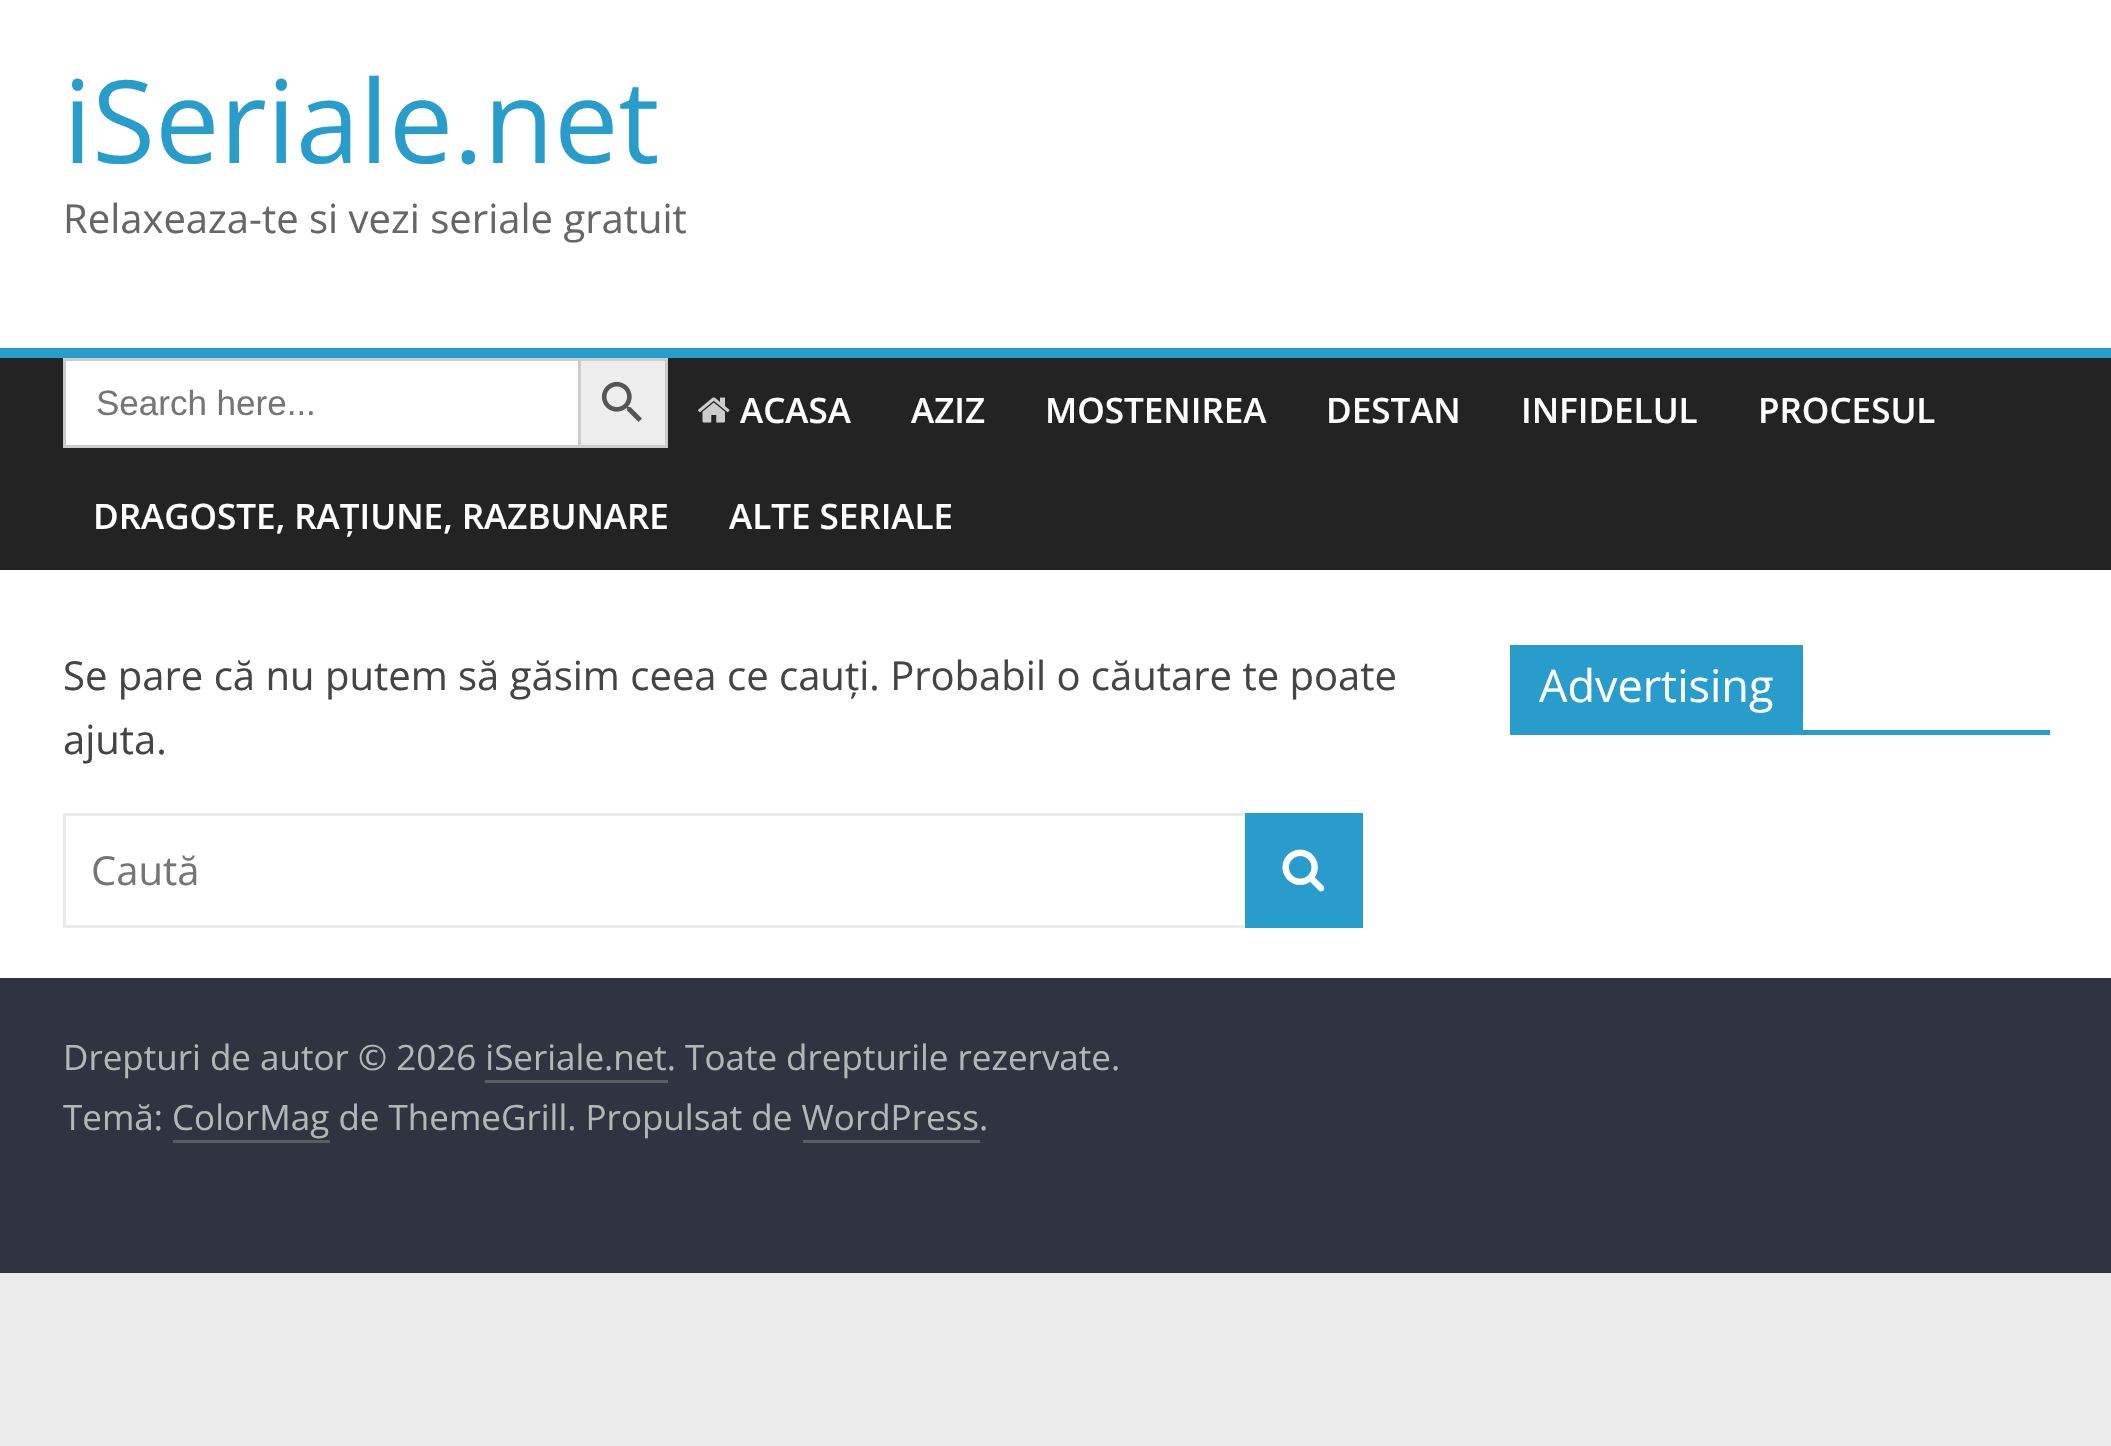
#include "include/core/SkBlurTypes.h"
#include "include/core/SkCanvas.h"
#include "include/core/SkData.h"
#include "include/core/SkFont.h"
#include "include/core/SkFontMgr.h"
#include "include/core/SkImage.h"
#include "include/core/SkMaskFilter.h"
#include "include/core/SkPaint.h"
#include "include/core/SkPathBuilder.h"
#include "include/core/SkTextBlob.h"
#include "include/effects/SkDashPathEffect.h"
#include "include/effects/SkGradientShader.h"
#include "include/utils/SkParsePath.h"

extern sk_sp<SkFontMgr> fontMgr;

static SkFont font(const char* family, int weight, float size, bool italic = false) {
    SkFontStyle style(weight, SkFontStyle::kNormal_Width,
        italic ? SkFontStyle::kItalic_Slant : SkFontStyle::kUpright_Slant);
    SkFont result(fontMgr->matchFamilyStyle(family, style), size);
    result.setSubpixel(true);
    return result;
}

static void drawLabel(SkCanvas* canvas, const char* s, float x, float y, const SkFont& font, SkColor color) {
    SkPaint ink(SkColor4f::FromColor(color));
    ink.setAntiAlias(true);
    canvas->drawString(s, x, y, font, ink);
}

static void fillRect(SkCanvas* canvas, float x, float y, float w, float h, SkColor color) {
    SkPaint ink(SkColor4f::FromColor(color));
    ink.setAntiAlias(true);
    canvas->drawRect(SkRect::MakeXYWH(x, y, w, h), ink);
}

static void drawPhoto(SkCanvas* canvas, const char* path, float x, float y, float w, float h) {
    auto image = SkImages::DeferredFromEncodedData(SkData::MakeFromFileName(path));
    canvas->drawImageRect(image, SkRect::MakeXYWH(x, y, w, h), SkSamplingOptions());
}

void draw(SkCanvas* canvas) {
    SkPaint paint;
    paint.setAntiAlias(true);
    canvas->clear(0xFFEAEAEA);
    fillRect(canvas, 0, 0, 2111, 348, 0xFFFFFFFF);
    SkFont font1 = font("Open Sans", 400, 115);
    drawLabel(canvas, "iSeriale.net", 63, 163, font1, 0xFF289DCC);
    SkFont font2 = font("Open Sans", 400, 40);
    drawLabel(canvas, "Relaxeaza-te si vezi seriale gratuit", 63, 233, font2, 0xFF666666);
    fillRect(canvas, 0, 358, 2111, 212, 0xFF232323);
    fillRect(canvas, 0, 348, 2111, 10, 0xFF289DCC);
    fillRect(canvas, 66, 361, 512, 84, 0xFFFFFFFF);
    fillRect(canvas, 63, 358, 515, 3, 0xFFCCCCCC);
    fillRect(canvas, 63, 445, 515, 3, 0xFFCCCCCC);
    fillRect(canvas, 63, 358, 3, 90, 0xFFCCCCCC);
    SkFont font3 = font("Liberation Sans", 400, 35);
    drawLabel(canvas, "Search here...", 96, 415, font3, 0xFF757575);
    paint.setColor(0xFFEDEDED);
    canvas->drawRect(SkRect::MakeXYWH(579.5f, 359.5f, 87, 87), paint);
    paint.setStroke(true);
    paint.setStrokeWidth(3);
    paint.setColor(0xFFCCCCCC);
    canvas->drawRect(SkRect::MakeXYWH(579.5f, 359.5f, 87, 87), paint);
    drawPhoto(canvas, "assets/img1.png", 601, 381, 41, 41);
    drawPhoto(canvas, "assets/img2.png", 698, 397, 32, 26);
    SkFont font4 = font("Open Sans", 600, 35);
    drawLabel(canvas, "ACASA", 740, 423, font4, 0xFFFFFFFF);
    drawLabel(canvas, "AZIZ", 911, 423, font4, 0xFFFFFFFF);
    drawLabel(canvas, "MOSTENIREA", 1045, 423, font4, 0xFFFFFFFF);
    drawLabel(canvas, "DESTAN", 1326, 423, font4, 0xFFFFFFFF);
    drawLabel(canvas, "INFIDELUL", 1521, 423, font4, 0xFFFFFFFF);
    drawLabel(canvas, "PROCESUL", 1758, 423, font4, 0xFFFFFFFF);
    drawLabel(canvas, "DRAGOSTE, RAȚIUNE, RAZBUNARE", 93, 529, font4, 0xFFFFFFFF);
    drawLabel(canvas, "ALTE SERIALE", 729, 529, font4, 0xFFFFFFFF);
    fillRect(canvas, 0, 570, 2111, 408, 0xFFFFFFFF);
    drawLabel(canvas, "Se pare că nu putem să găsim ceea ce cauți. Probabil o căutare te poate", 63, 690, font2, 0xFF444444);
    drawLabel(canvas, "ajuta.", 63, 754, font2, 0xFF444444);
    paint.setColor(0xFFEAEAEA);
    canvas->drawRect(SkRect::MakeXYWH(64.5f, 814.5f, 1182, 112), paint);
    drawLabel(canvas, "Caută", 91, 885, font2, 0xFF757575);
    fillRect(canvas, 1245, 813, 118, 115, 0xFF289DCC);
    drawPhoto(canvas, "assets/img3.png", 1282, 849, 43, 43);
    fillRect(canvas, 1510, 730, 540, 5, 0xFF289DCC);
    fillRect(canvas, 1510, 645, 293, 85, 0xFF289DCC);
    SkFont font5 = font("Open Sans", 400, 45);
    drawLabel(canvas, "Advertising", 1539, 702, font5, 0xFFFFFFFF);
    fillRect(canvas, 0, 978, 2111, 295, 0xFF303440);
    SkFont font6 = font("Open Sans", 400, 35);
    drawLabel(canvas, "Drepturi de autor © 2026 iSeriale.net. Toate drepturile rezervate.", 63, 1070, font6, 0xFFB1B6B6);
    fillRect(canvas, 485, 1080, 183, 3, 0xFF5A5D62);
    drawLabel(canvas, "Temă: ColorMag de ThemeGrill. Propulsat de WordPress.", 63, 1130, font6, 0xFFB1B6B6);
    fillRect(canvas, 173, 1140, 157, 3, 0xFF5A5D62);
    fillRect(canvas, 803, 1140, 177, 3, 0xFF5A5D62);
}
